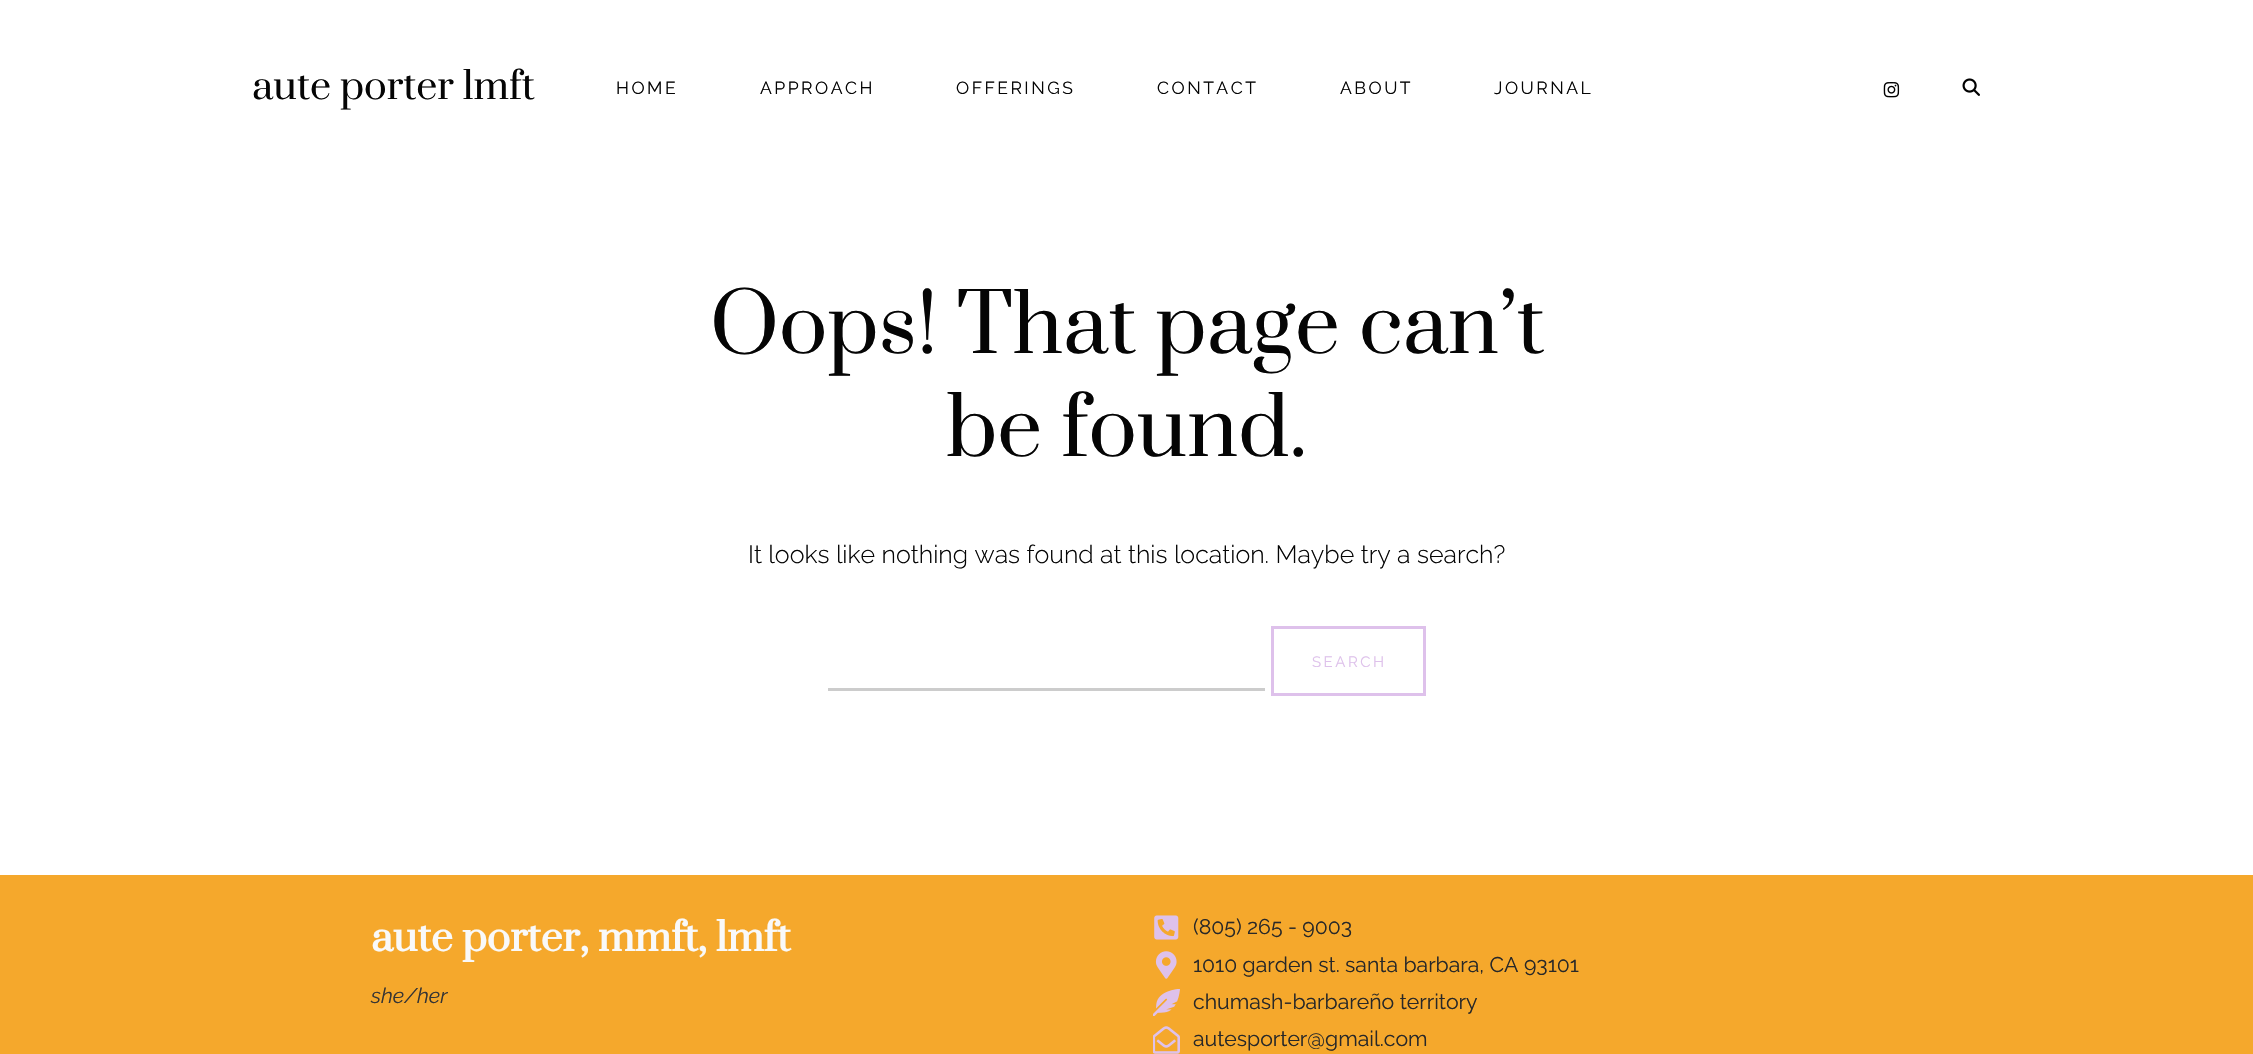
#include "include/core/SkBlurTypes.h"
#include "include/core/SkCanvas.h"
#include "include/core/SkData.h"
#include "include/core/SkFont.h"
#include "include/core/SkFontMgr.h"
#include "include/core/SkImage.h"
#include "include/core/SkMaskFilter.h"
#include "include/core/SkPaint.h"
#include "include/core/SkPathBuilder.h"
#include "include/core/SkTextBlob.h"
#include "include/effects/SkDashPathEffect.h"
#include "include/effects/SkGradientShader.h"
#include "include/utils/SkParsePath.h"

extern sk_sp<SkFontMgr> fontMgr;

static SkFont font(const char* family, int weight, float size, bool italic = false) {
    SkFontStyle style(weight, SkFontStyle::kNormal_Width,
        italic ? SkFontStyle::kItalic_Slant : SkFontStyle::kUpright_Slant);
    SkFont result(fontMgr->matchFamilyStyle(family, style), size);
    result.setSubpixel(true);
    return result;
}

static void drawLabel(SkCanvas* canvas, const char* s, float x, float y, const SkFont& font, SkColor color) {
    SkPaint ink(SkColor4f::FromColor(color));
    ink.setAntiAlias(true);
    canvas->drawString(s, x, y, font, ink);
}

static void drawTracked(SkCanvas* canvas, const char* s, float x, float y, const SkFont& font, const SkPaint& ink, float letter, float word) {
    std::vector<SkGlyphID> glyphs(font.countText(s, strlen(s), SkTextEncoding::kUTF8));
    std::vector<float> xs(glyphs.size());
    font.textToGlyphs(s, strlen(s), SkTextEncoding::kUTF8, glyphs);
    font.getXPos(glyphs, xs, x);
    float extra = 0;
    for (size_t i = 0; i < glyphs.size(); i++) {
        xs[i] += extra;
        extra += letter + word * (glyphs[i] == font.unicharToGlyph(' '));
    }
    canvas->drawTextBlob(SkTextBlob::MakeFromPosHGlyphs(glyphs, xs, y, font), 0, 0, ink);
}

static void fillRect(SkCanvas* canvas, float x, float y, float w, float h, SkColor color) {
    SkPaint ink(SkColor4f::FromColor(color));
    ink.setAntiAlias(true);
    canvas->drawRect(SkRect::MakeXYWH(x, y, w, h), ink);
}

static void drawPhoto(SkCanvas* canvas, const char* path, float x, float y, float w, float h) {
    auto image = SkImages::DeferredFromEncodedData(SkData::MakeFromFileName(path));
    canvas->drawImageRect(image, SkRect::MakeXYWH(x, y, w, h), SkSamplingOptions());
}

void draw(SkCanvas* canvas) {
    SkPaint paint;
    paint.setAntiAlias(true);
    canvas->clear(0xFFFFFFFF);
    SkFont font1 = font("Prata", 400, 37.5f);
    drawLabel(canvas, "aute porter lmft", 252, 99, font1, 0xFF050505);
    SkFont font2 = font("Raleway", 400, 17.5f);
    paint.setColor(0xFF050505);
    drawTracked(canvas, "HOME", 616, 94, font2, paint, 2.5f, 0);
    drawTracked(canvas, "APPROACH", 760, 94, font2, paint, 2.5f, 0);
    drawTracked(canvas, "OFFERINGS", 956, 94, font2, paint, 2.5f, 0);
    drawTracked(canvas, "CONTACT", 1157, 94, font2, paint, 2.5f, 0);
    drawTracked(canvas, "ABOUT", 1340, 94, font2, paint, 2.5f, 0);
    drawTracked(canvas, "JOURNAL", 1494, 94, font2, paint, 2.5f, 0);
    drawPhoto(canvas, "assets/img1.png", 1883, 82, 17, 16);
    drawPhoto(canvas, "assets/img2.png", 1962, 78, 18, 18);
    SkFont font3 = font("Prata", 400, 80);
    drawLabel(canvas, "Oops! That page can’t", 710, 353, font3, 0xFF050505);
    drawLabel(canvas, "be found.", 946, 456, font3, 0xFF050505);
    SkFont font4 = font("Raleway", 300, 25);
    drawLabel(canvas, "It looks like nothing was found at this location. Maybe try a search?", 748, 563, font4, 0xFF050505);
    paint.setStroke(true);
    paint.setStrokeWidth(3);
    paint.setColor(0xFFDEC1EB);
    canvas->drawRect(SkRect::MakeXYWH(1272.5f, 627.5f, 152, 67), paint);
    SkFont font5 = font("Raleway", 400, 15);
    paint.setStroke(false);
    drawTracked(canvas, "SEARCH", 1312, 667, font5, paint, 2.5f, 0);
    fillRect(canvas, 828, 688, 437, 3, 0xFFCCCCCC);
    fillRect(canvas, 0, 875, 2253, 179, 0xFFF5A82C);
    SkFont font6 = font("Prata", 700, 38.75f);
    drawLabel(canvas, "aute porter, mmft, lmft", 371, 951, font6, 0xFFF9F9F9);
    SkFont font7 = font("Raleway", 400, 21.25f, true);
    drawLabel(canvas, "she/her", 371, 1003, font7, 0xFF353434);
    drawPhoto(canvas, "assets/img3.png", 1154, 915, 25, 25);
    SkFont font8 = font("Raleway", 400, 21.25f);
    drawLabel(canvas, "(805) 265 - 9003", 1193, 934, font8, 0xFF282828);
    drawPhoto(canvas, "assets/img4.png", 1155, 951, 22, 28);
    drawLabel(canvas, "1010 garden st. santa barbara, CA 93101", 1193, 972, font8, 0xFF282828);
    drawPhoto(canvas, "assets/img5.png", 1153, 989, 27, 27);
    drawLabel(canvas, "chumash-barbareño territory", 1193, 1009, font8, 0xFF282828);
    drawPhoto(canvas, "assets/img6.png", 1153, 1026, 27, 28);
    drawLabel(canvas, "autesporter@gmail.com", 1193, 1046, font8, 0xFF282828);
}
